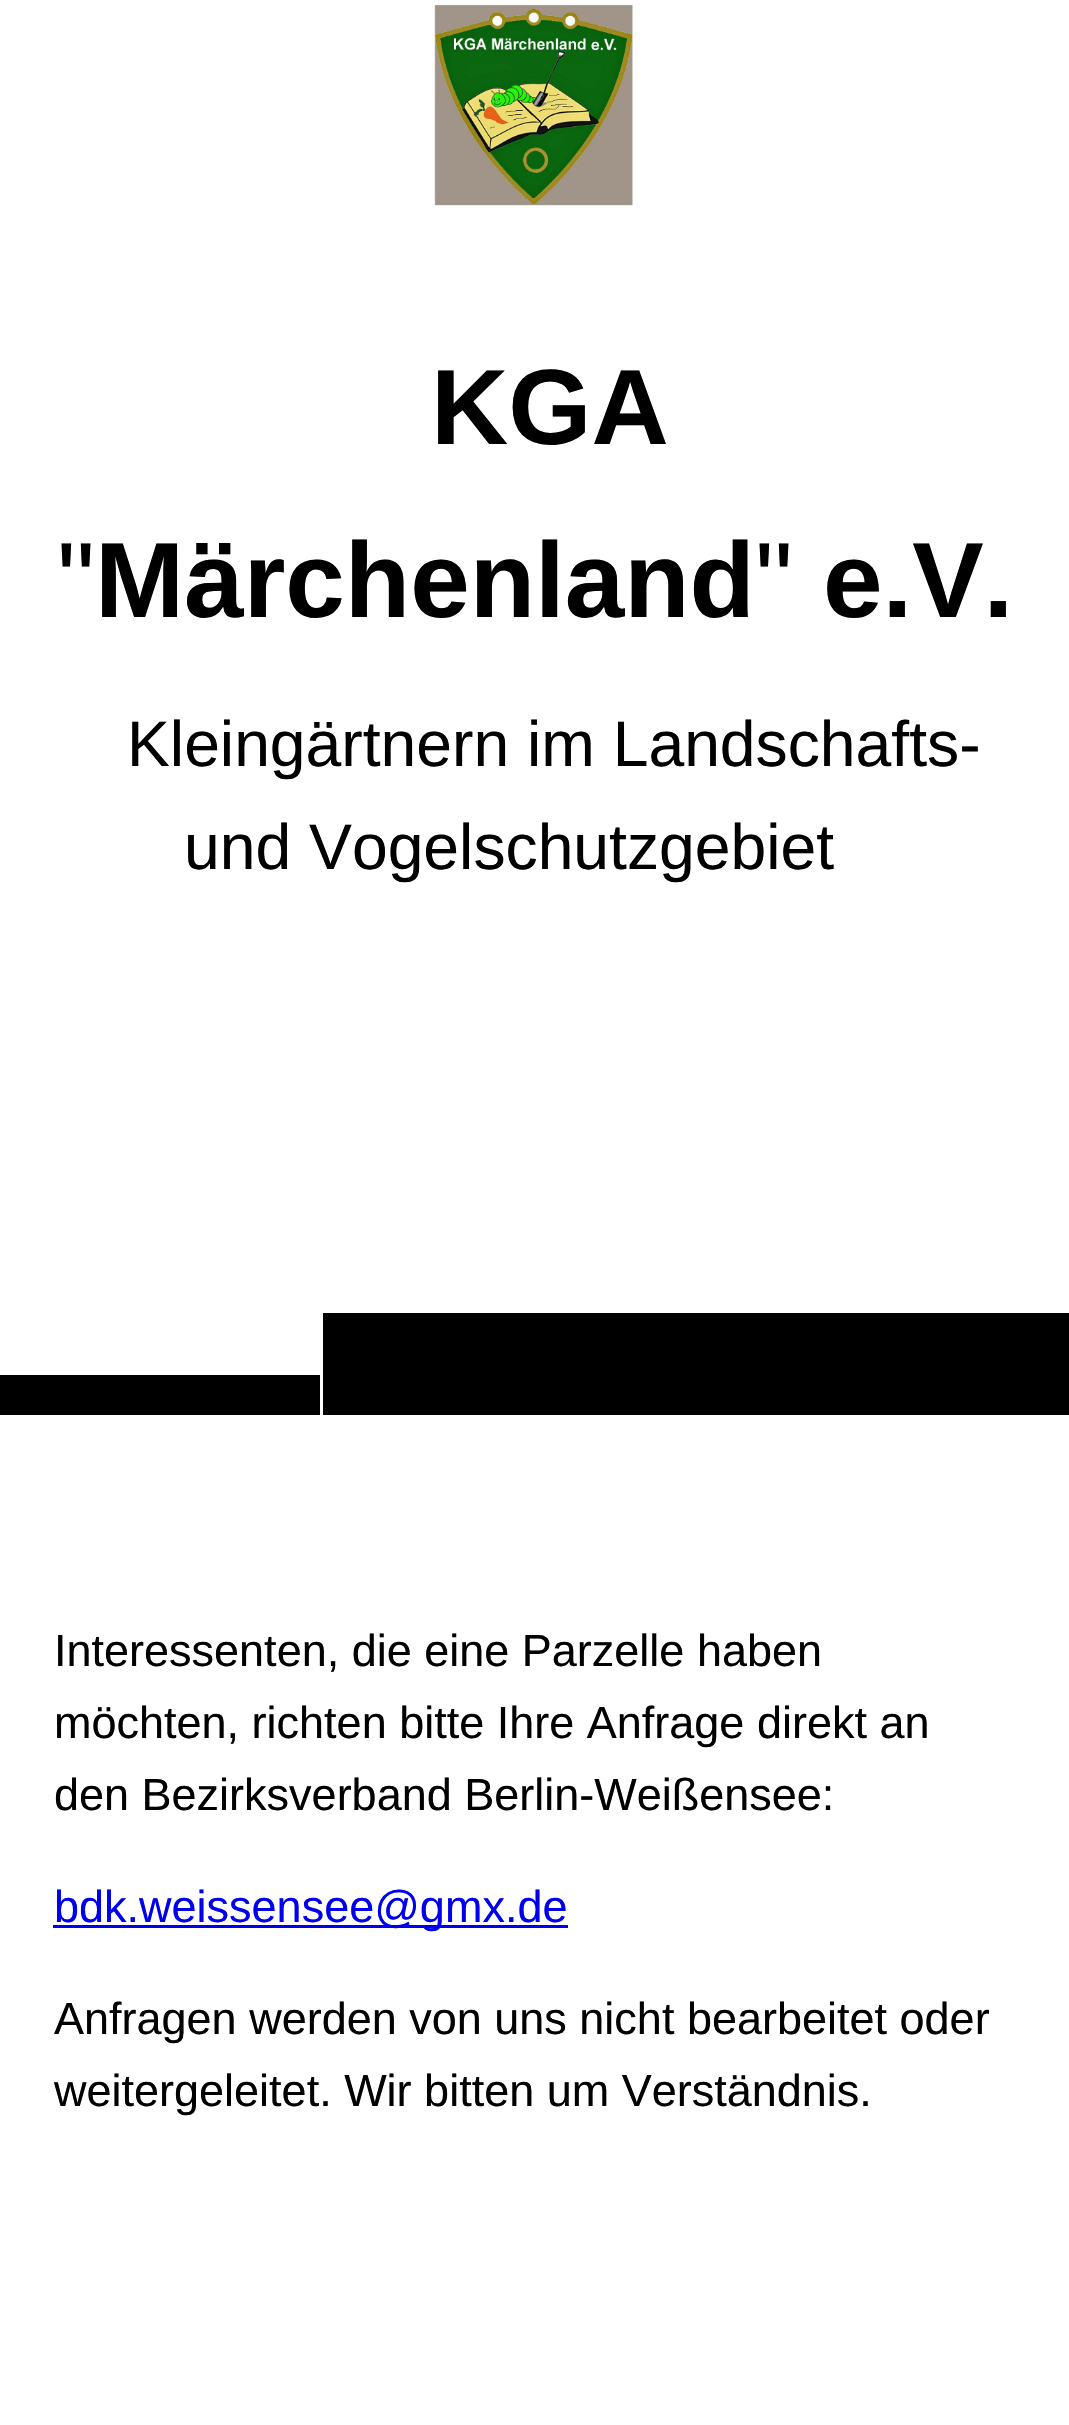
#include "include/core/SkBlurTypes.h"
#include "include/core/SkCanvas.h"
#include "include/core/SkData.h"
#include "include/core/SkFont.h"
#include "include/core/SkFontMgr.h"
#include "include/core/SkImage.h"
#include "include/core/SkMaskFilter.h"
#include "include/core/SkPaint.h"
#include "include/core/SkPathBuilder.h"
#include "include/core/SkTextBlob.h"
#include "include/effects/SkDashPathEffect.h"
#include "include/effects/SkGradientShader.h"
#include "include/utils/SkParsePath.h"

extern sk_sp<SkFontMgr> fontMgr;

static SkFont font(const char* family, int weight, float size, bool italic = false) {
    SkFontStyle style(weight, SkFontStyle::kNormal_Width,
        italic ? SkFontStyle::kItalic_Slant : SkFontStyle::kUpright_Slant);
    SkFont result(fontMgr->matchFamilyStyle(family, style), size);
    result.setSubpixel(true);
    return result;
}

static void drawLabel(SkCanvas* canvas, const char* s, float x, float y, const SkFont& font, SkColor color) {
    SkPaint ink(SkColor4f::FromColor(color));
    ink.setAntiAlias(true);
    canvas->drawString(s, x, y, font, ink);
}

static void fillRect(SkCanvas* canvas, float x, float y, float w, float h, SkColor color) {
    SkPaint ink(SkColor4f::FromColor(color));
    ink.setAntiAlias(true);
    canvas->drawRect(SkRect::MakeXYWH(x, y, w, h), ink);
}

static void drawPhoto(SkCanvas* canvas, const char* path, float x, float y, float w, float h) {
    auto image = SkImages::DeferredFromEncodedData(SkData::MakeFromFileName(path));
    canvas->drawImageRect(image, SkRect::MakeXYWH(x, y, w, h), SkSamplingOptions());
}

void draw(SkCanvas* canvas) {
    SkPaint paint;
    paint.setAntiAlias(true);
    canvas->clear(0xFFFFFFFF);
    drawPhoto(canvas, "assets/img1.png", 434, 5, 199, 201);
    SkFont font1 = font("Liberation Sans", 700, 107);
    drawLabel(canvas, "KGA", 431, 444, font1, 0xFF000000);
    SkFont font2 = font("Liberation Sans", 400, 107);
    drawLabel(canvas, "\"", 57, 617, font2, 0xFF000000);
    drawLabel(canvas, "Märchenland", 95, 617, font1, 0xFF000000);
    drawLabel(canvas, "\"", 755, 617, font2, 0xFF000000);
    drawLabel(canvas, "e.V.", 823, 617, font1, 0xFF000000);
    SkFont font3 = font("Liberation Sans", 400, 64.25f);
    drawLabel(canvas, "Kleingärtnern im Landschafts-", 127, 766, font3, 0xFF000000);
    drawLabel(canvas, "und Vogelschutzgebiet", 184, 869, font3, 0xFF000000);
    fillRect(canvas, 0, 1375, 320, 40, 0xFF000000);
    fillRect(canvas, 323, 1313, 746, 102, 0xFF000000);
    SkFont font4 = font("Liberation Sans", 400, 45);
    drawLabel(canvas, "Interessenten, die eine Parzelle haben", 54, 1666, font4, 0xFF000000);
    drawLabel(canvas, "möchten, richten bitte Ihre Anfrage direkt an", 54, 1738, font4, 0xFF000000);
    drawLabel(canvas, "den Bezirksverband Berlin-Weißensee:", 54, 1810, font4, 0xFF000000);
    fillRect(canvas, 53, 1925, 515, 3, 0xFF0000EE);
    drawLabel(canvas, "bdk.weissensee@gmx.de", 54, 1922, font4, 0xFF0000EE);
    drawLabel(canvas, "Anfragen werden von uns nicht bearbeitet oder", 54, 2034, font4, 0xFF000000);
    drawLabel(canvas, "weitergeleitet. Wir bitten um Verständnis.", 54, 2106, font4, 0xFF000000);
}
